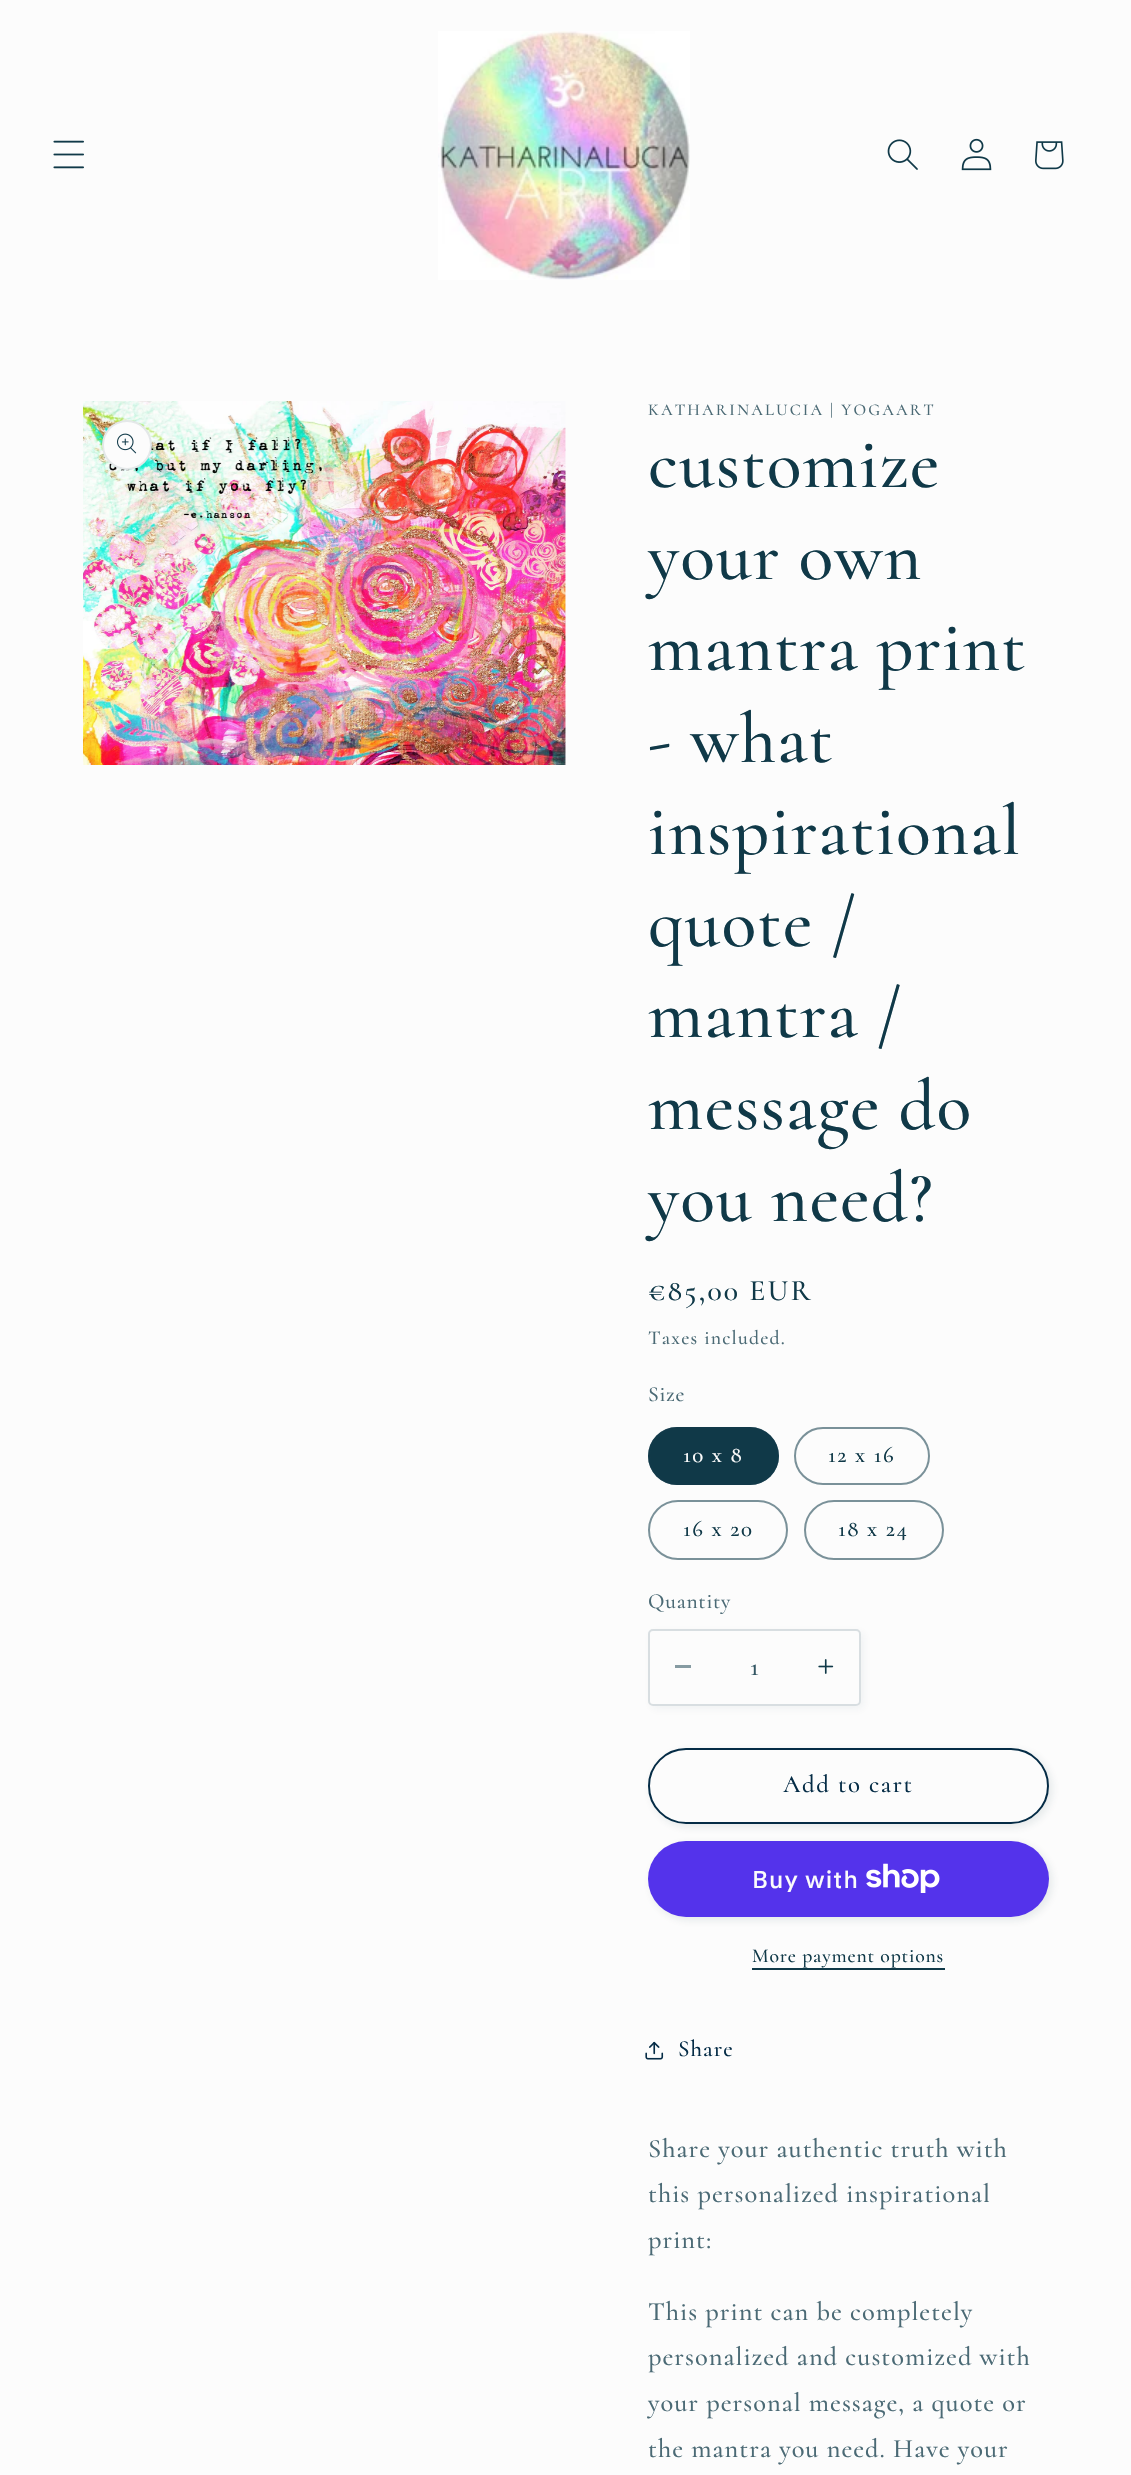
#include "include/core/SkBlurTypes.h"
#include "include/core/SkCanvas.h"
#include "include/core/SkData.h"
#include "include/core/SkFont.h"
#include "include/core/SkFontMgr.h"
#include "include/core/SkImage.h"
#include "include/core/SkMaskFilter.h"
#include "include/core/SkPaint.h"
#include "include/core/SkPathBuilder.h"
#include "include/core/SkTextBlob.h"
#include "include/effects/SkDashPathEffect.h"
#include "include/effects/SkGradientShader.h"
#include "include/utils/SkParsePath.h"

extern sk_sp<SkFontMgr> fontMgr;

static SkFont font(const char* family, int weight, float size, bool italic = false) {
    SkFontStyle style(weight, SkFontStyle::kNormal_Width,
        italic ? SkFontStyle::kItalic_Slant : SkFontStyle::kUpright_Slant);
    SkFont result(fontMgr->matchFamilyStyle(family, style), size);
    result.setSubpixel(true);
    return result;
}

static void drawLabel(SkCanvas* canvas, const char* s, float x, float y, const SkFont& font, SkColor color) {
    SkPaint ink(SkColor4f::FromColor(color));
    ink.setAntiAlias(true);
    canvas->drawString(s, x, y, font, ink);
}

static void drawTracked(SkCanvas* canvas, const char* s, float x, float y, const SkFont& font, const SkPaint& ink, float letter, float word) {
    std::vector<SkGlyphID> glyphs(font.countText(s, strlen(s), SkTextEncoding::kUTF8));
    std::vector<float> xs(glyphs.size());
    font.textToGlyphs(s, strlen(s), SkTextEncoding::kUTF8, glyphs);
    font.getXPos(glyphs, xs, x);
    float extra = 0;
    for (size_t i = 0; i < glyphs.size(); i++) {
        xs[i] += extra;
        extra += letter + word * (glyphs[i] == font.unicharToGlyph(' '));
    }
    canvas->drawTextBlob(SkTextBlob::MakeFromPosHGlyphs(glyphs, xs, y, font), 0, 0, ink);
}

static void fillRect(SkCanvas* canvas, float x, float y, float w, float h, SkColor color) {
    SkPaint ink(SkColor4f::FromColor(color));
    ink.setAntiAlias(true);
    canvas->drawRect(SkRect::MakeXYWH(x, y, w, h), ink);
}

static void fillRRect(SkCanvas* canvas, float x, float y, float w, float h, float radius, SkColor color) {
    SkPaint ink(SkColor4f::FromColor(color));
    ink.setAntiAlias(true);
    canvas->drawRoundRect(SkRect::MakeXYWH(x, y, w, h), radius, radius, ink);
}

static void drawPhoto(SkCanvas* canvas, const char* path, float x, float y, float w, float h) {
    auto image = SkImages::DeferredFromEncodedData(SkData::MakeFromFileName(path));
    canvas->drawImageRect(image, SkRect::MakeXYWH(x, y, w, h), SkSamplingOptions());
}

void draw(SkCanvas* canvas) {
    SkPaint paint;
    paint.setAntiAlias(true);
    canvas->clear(0xFFFCFCFC);
    drawPhoto(canvas, "assets/img1.png", 53, 140, 31, 29);
    drawPhoto(canvas, "assets/img2.png", 438, 31, 252, 249);
    drawPhoto(canvas, "assets/img3.png", 887, 139, 31, 31);
    drawPhoto(canvas, "assets/img4.png", 961, 138, 31, 33);
    drawPhoto(canvas, "assets/img5.png", 1035, 141, 29, 29);
    drawPhoto(canvas, "assets/img6.png", 83, 401, 483, 364);
    paint.setColor(0xFFFCFCFC);
    canvas->drawCircle(127, 445, 25, paint);
    paint.setStroke(true);
    paint.setStrokeWidth(2);
    paint.setColor(0x1A103948);
    canvas->drawCircle(127, 445, 24, paint);
    drawPhoto(canvas, "assets/img7.png", 117, 433, 20, 21);
    SkFont font1 = font("Cormorant", 500, 16.5f);
    paint.setStroke(false);
    paint.setColor(0xFF4B6A75);
    drawTracked(canvas, "KATHARINALUCIA | YOGAART", 648, 415, font1, paint, 2.15f, 0);
    SkFont font2 = font("Cormorant", 500, 72);
    paint.setColor(0xFF103948);
    drawTracked(canvas, "customize", 648, 487, font2, paint, 1.1f, 0);
    drawTracked(canvas, "your own", 648, 579, font2, paint, 1.1f, 0);
    drawTracked(canvas, "mantra print", 648, 670, font2, paint, 1.1f, 0);
    drawTracked(canvas, "- what", 648, 762, font2, paint, 1.1f, 0);
    drawTracked(canvas, "inspirational", 648, 854, font2, paint, 1.1f, 0);
    drawTracked(canvas, "quote /", 648, 946, font2, paint, 1.1f, 0);
    drawTracked(canvas, "mantra /", 648, 1037, font2, paint, 1.1f, 0);
    drawTracked(canvas, "message do", 648, 1129, font2, paint, 1.1f, 0);
    drawTracked(canvas, "you need?", 648, 1221, font2, paint, 1.1f, 0);
    SkFont font3 = font("Cormorant", 500, 29.75f);
    drawTracked(canvas, "€85,00 EUR", 648, 1300, font3, paint, 2.15f, 0);
    SkFont font4 = font("Cormorant", 500, 19.75f);
    paint.setColor(0xFF4B6A75);
    drawTracked(canvas, "Taxes included.", 648, 1344, font4, paint, 1.2f, 0);
    SkFont font5 = font("Cormorant", 500, 21.5f);
    drawTracked(canvas, "Size", 648, 1401, font5, paint, 0.75f, 0);
    fillRRect(canvas, 648, 1427, 131, 58, 29, 0xFF103948);
    paint.setStroke(true);
    paint.setColor(0x8C103948);
    canvas->drawRoundRect(SkRect::MakeXYWH(649, 1428, 129, 56), 28, 28, paint);
    SkFont font6 = font("Cormorant", 500, 23);
    paint.setStroke(false);
    paint.setColor(0xFFFCFCFC);
    drawTracked(canvas, "10 x 8", 683, 1462, font6, paint, 1.6f, 0);
    paint.setStroke(true);
    paint.setColor(0xFF7A9199);
    canvas->drawRoundRect(SkRect::MakeXYWH(795, 1428, 134, 56), 28, 28, paint);
    paint.setStroke(false);
    paint.setColor(0xFF103948);
    drawTracked(canvas, "12 x 16", 828, 1462, font6, paint, 1.6f, 0);
    paint.setStroke(true);
    paint.setColor(0xFF7A9199);
    canvas->drawRoundRect(SkRect::MakeXYWH(649, 1501, 138, 58), 29, 29, paint);
    paint.setStroke(false);
    paint.setColor(0xFF103948);
    drawTracked(canvas, "16 x 20", 683, 1536, font6, paint, 1.6f, 0);
    paint.setStroke(true);
    paint.setColor(0xFF7A9199);
    canvas->drawRoundRect(SkRect::MakeXYWH(805, 1501, 138, 58), 29, 29, paint);
    paint.setStroke(false);
    paint.setColor(0xFF103948);
    drawTracked(canvas, "18 x 24", 838, 1536, font6, paint, 1.6f, 0);
    paint.setColor(0xFF4B6A75);
    drawTracked(canvas, "Quantity", 648, 1608, font5, paint, 0.75f, 0);
    paint.setColor(0x0D103948);
    paint.setMaskFilter(SkMaskFilter::MakeBlur(kNormal_SkBlurStyle, 4));
    canvas->drawRoundRect(SkRect::MakeXYWH(651, 1632, 213, 77), 5, 5, paint);
    paint.setMaskFilter(nullptr);
    fillRRect(canvas, 648, 1629, 213, 77, 5, 0xFFFCFCFC);
    fillRect(canvas, 675, 1665, 16, 3, 0xFF869BA2);
    drawPhoto(canvas, "assets/img8.png", 818, 1659, 16, 15);
    paint.setStroke(true);
    paint.setColor(0x26103948);
    canvas->drawRoundRect(SkRect::MakeXYWH(649, 1630, 211, 75), 4, 4, paint);
    SkFont font7 = font("Cormorant", 500, 26.4f);
    drawLabel(canvas, "1", 750, 1675, font7, 0xFF335663);
    paint.setStroke(false);
    paint.setColor(0x1A103948);
    paint.setMaskFilter(SkMaskFilter::MakeBlur(kNormal_SkBlurStyle, 4));
    canvas->drawRoundRect(SkRect::MakeXYWH(651, 1751, 401, 76), 38, 38, paint);
    paint.setMaskFilter(nullptr);
    fillRRect(canvas, 648, 1748, 401, 76, 38, 0xFFFCFCFC);
    paint.setStroke(true);
    paint.setColor(0xFFFCFCFC);
    canvas->drawRoundRect(SkRect::MakeXYWH(649, 1749, 399, 74), 37, 37, paint);
    paint.setColor(0xFF052C46);
    canvas->drawRoundRect(SkRect::MakeXYWH(649, 1749, 399, 74), 37, 37, paint);
    SkFont font8 = font("Cormorant", 500, 24.75f);
    paint.setStroke(false);
    drawTracked(canvas, "Add to cart", 783, 1792, font8, paint, 1.6f, 0);
    paint.setColor(0x1A103948);
    paint.setMaskFilter(SkMaskFilter::MakeBlur(kNormal_SkBlurStyle, 4));
    canvas->drawRoundRect(SkRect::MakeXYWH(651, 1844, 401, 76), 38, 38, paint);
    paint.setMaskFilter(nullptr);
    fillRRect(canvas, 648, 1841, 401, 76, 38, 0xFF5433EB);
    SkFont font9 = font("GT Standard", 500, 24);
    paint.setColor(0xFFFCFCFC);
    drawTracked(canvas, "Buy with", 752, 1888, font9, paint, 1, 0);
    drawPhoto(canvas, "assets/img9.png", 866, 1863, 74, 30);
    paint.setColor(0xFF103948);
    drawTracked(canvas, "More payment options", 752, 1962, font4, paint, 0.8f, 0);
    fillRect(canvas, 752, 1968, 193, 2, 0xFF103948);
    drawPhoto(canvas, "assets/img10.png", 645, 2041, 19, 19);
    paint.setColor(0xFF052C46);
    drawTracked(canvas, "Share", 678, 2056, font6, paint, 1, 0);
    paint.setColor(0xFF4B6A75);
    drawTracked(canvas, "Share your authentic truth with", 648, 2157, font7, paint, 1, 0);
    drawTracked(canvas, "this personalized inspirational", 648, 2202, font7, paint, 1, 0);
    drawTracked(canvas, "print:", 648, 2248, font7, paint, 1, 0);
    drawTracked(canvas, "This print can be completely", 648, 2320, font7, paint, 1, 0);
    drawTracked(canvas, "personalized and customized with", 648, 2365, font7, paint, 1, 0);
    drawTracked(canvas, "your personal message, a quote or", 648, 2411, font7, paint, 1, 0);
    drawTracked(canvas, "the mantra you need. Have your", 648, 2457, font7, paint, 1, 0);
}
